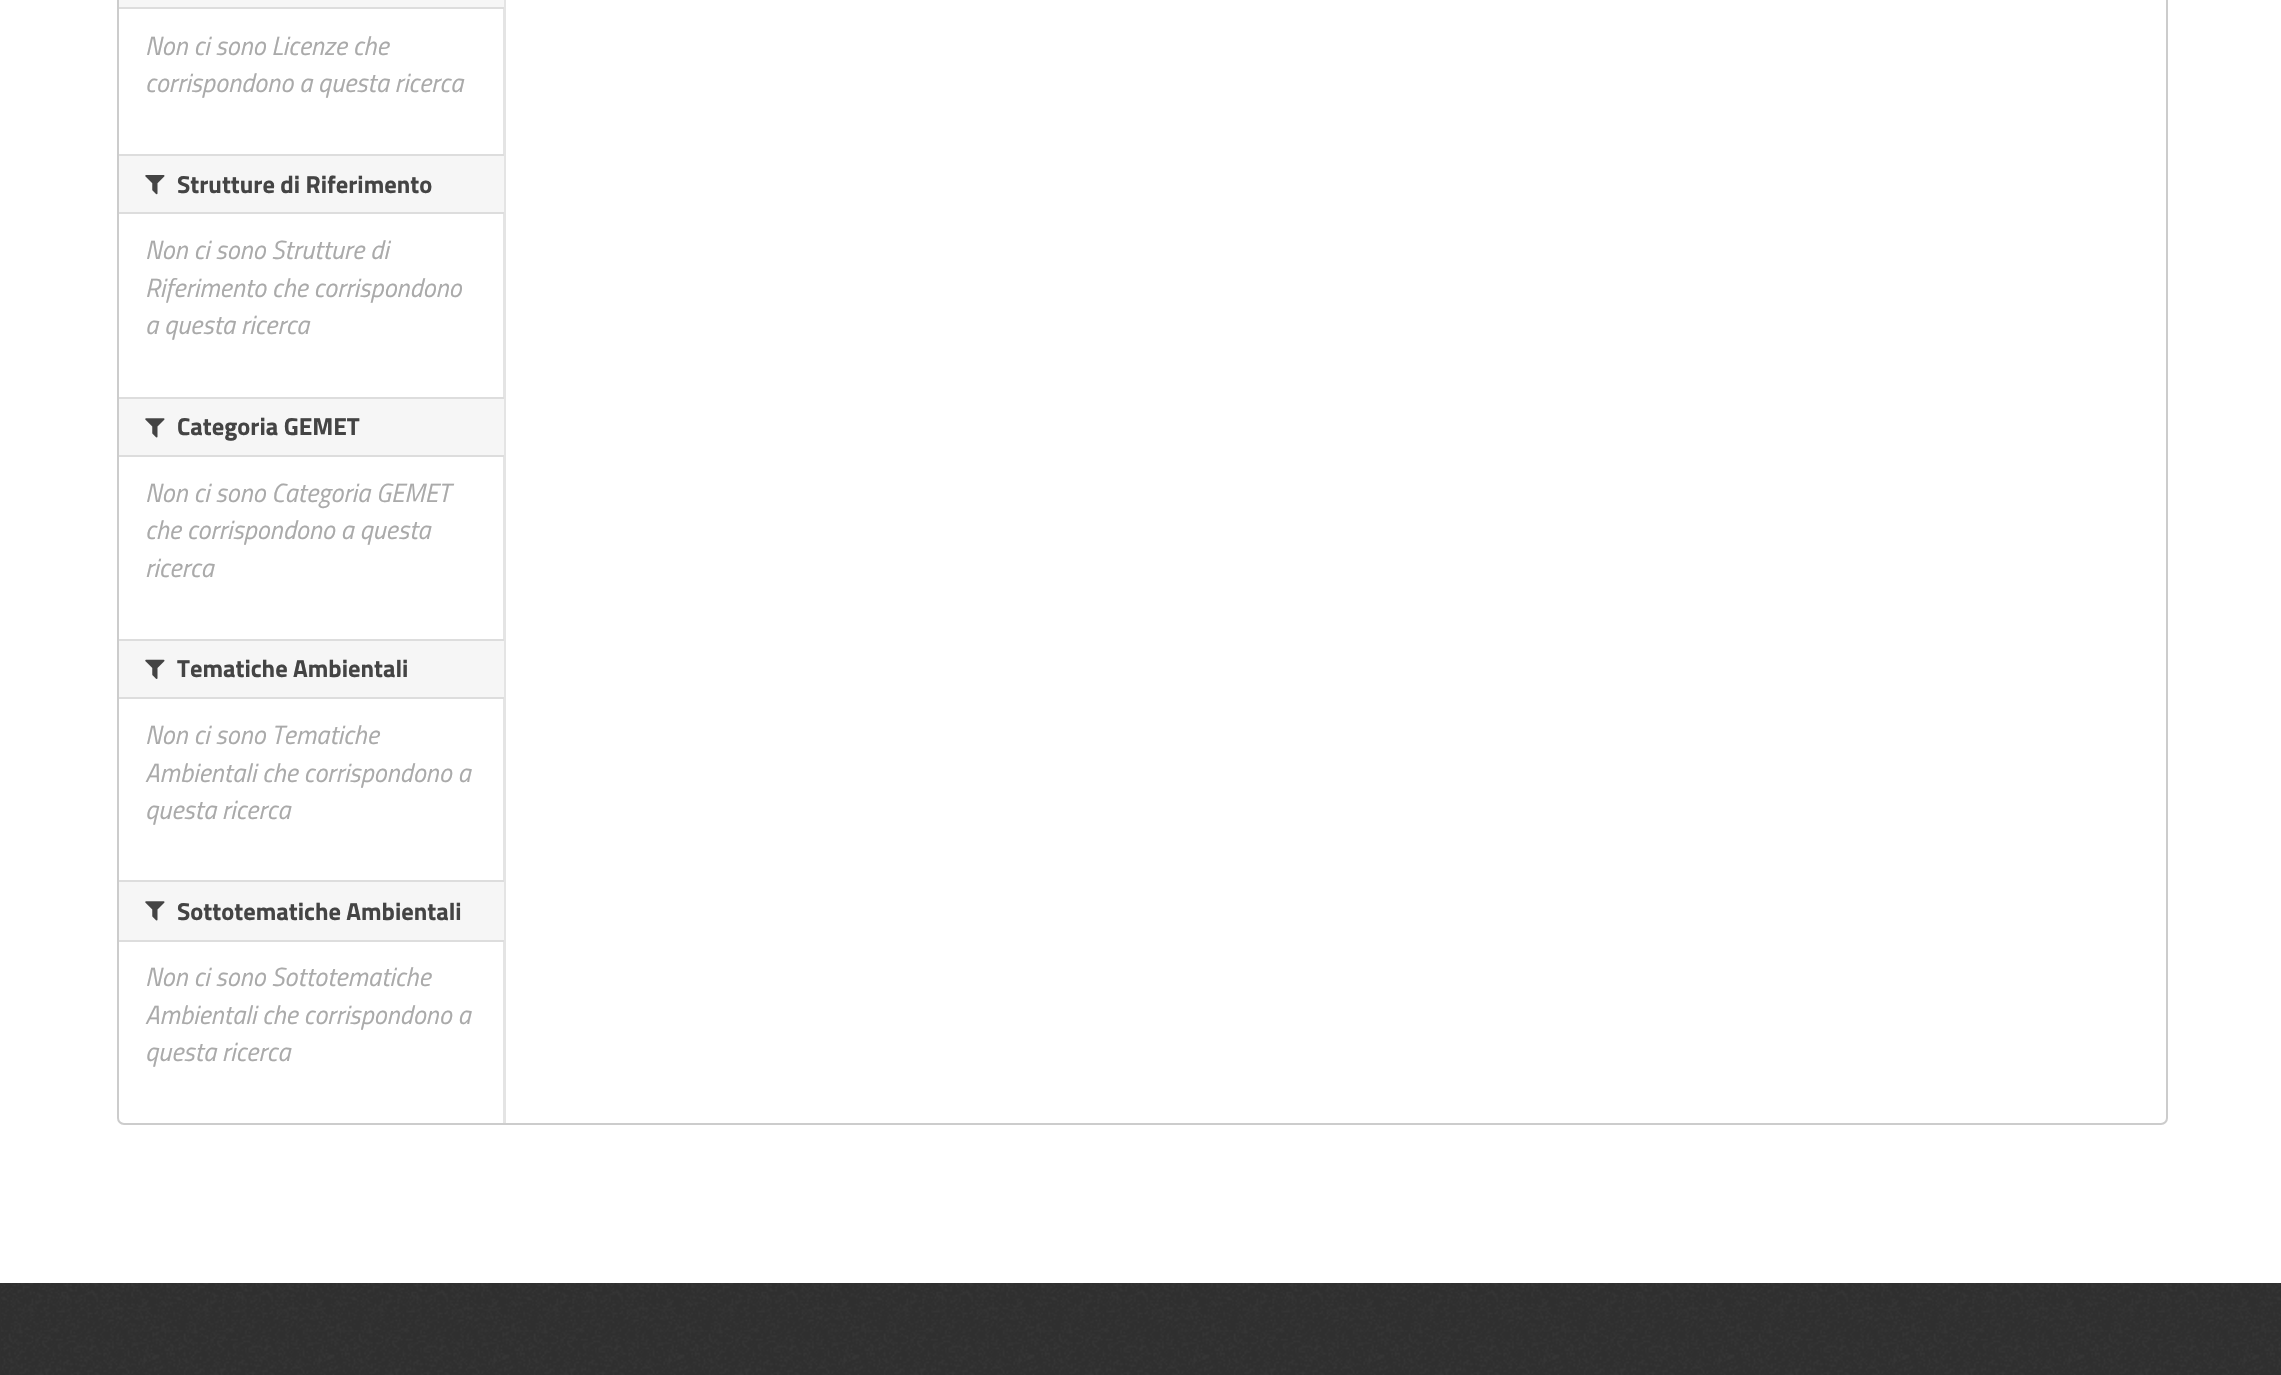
#include "include/core/SkBlurTypes.h"
#include "include/core/SkCanvas.h"
#include "include/core/SkData.h"
#include "include/core/SkFont.h"
#include "include/core/SkFontMgr.h"
#include "include/core/SkImage.h"
#include "include/core/SkMaskFilter.h"
#include "include/core/SkPaint.h"
#include "include/core/SkPathBuilder.h"
#include "include/core/SkTextBlob.h"
#include "include/effects/SkDashPathEffect.h"
#include "include/effects/SkGradientShader.h"
#include "include/utils/SkParsePath.h"

extern sk_sp<SkFontMgr> fontMgr;

static SkFont font(const char* family, int weight, float size, bool italic = false) {
    SkFontStyle style(weight, SkFontStyle::kNormal_Width,
        italic ? SkFontStyle::kItalic_Slant : SkFontStyle::kUpright_Slant);
    SkFont result(fontMgr->matchFamilyStyle(family, style), size);
    result.setSubpixel(true);
    return result;
}

static void drawLabel(SkCanvas* canvas, const char* s, float x, float y, const SkFont& font, SkColor color) {
    SkPaint ink(SkColor4f::FromColor(color));
    ink.setAntiAlias(true);
    canvas->drawString(s, x, y, font, ink);
}

static void fillRect(SkCanvas* canvas, float x, float y, float w, float h, SkColor color) {
    SkPaint ink(SkColor4f::FromColor(color));
    ink.setAntiAlias(true);
    canvas->drawRect(SkRect::MakeXYWH(x, y, w, h), ink);
}

static void drawPhoto(SkCanvas* canvas, const char* path, float x, float y, float w, float h) {
    auto image = SkImages::DeferredFromEncodedData(SkData::MakeFromFileName(path));
    canvas->drawImageRect(image, SkRect::MakeXYWH(x, y, w, h), SkSamplingOptions());
}

void draw(SkCanvas* canvas) {
    SkPaint paint;
    paint.setAntiAlias(true);
    canvas->clear(0xFFFFFFFF);
    fillRect(canvas, 503, 0, 3, 1125, 0xFFE4E4E4);
    paint.setStroke(true);
    paint.setStrokeWidth(2);
    paint.setColor(0xFFCCCCCC);
    canvas->drawRoundRect(SkRect::MakeXYWH(118, -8, 2049, 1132), 6, 6, paint);
    fillRect(canvas, 119, 0, 385, 7, 0xFFF6F6F6);
    fillRect(canvas, 119, 7, 385, 2, 0xFFDDDDDD);
    SkFont font1 = font("Titillium Web", 400, 26.25f, true);
    drawLabel(canvas, "Non ci sono Licenze che", 145, 55, font1, 0xFFAAAAAA);
    drawLabel(canvas, "corrispondono a questa ricerca", 145, 92, font1, 0xFFAAAAAA);
    fillRect(canvas, 119, 156, 385, 56, 0xFFF6F6F6);
    fillRect(canvas, 119, 154, 385, 2, 0xFFDDDDDD);
    fillRect(canvas, 119, 212, 385, 2, 0xFFDDDDDD);
    drawPhoto(canvas, "assets/img1.png", 145, 175, 20, 20);
    SkFont font2 = font("Titillium Web", 700, 24.5f);
    drawLabel(canvas, "Strutture di Riferimento", 177, 193, font2, 0xFF444444);
    drawLabel(canvas, "Non ci sono Strutture di", 145, 259, font1, 0xFFAAAAAA);
    drawLabel(canvas, "Riferimento che corrispondono", 145, 297, font1, 0xFFAAAAAA);
    drawLabel(canvas, "a questa ricerca", 145, 334, font1, 0xFFAAAAAA);
    fillRect(canvas, 119, 399, 385, 56, 0xFFF6F6F6);
    fillRect(canvas, 119, 397, 385, 2, 0xFFDDDDDD);
    fillRect(canvas, 119, 455, 385, 2, 0xFFDDDDDD);
    drawPhoto(canvas, "assets/img2.png", 145, 418, 20, 20);
    drawLabel(canvas, "Categoria GEMET", 177, 435, font2, 0xFF444444);
    drawLabel(canvas, "Non ci sono Categoria GEMET", 145, 502, font1, 0xFFAAAAAA);
    drawLabel(canvas, "che corrispondono a questa", 145, 539, font1, 0xFFAAAAAA);
    drawLabel(canvas, "ricerca", 145, 577, font1, 0xFFAAAAAA);
    fillRect(canvas, 119, 641, 385, 56, 0xFFF6F6F6);
    fillRect(canvas, 119, 639, 385, 2, 0xFFDDDDDD);
    fillRect(canvas, 119, 697, 385, 2, 0xFFDDDDDD);
    drawPhoto(canvas, "assets/img3.png", 145, 659, 20, 20);
    drawLabel(canvas, "Tematiche Ambientali", 177, 677, font2, 0xFF444444);
    drawLabel(canvas, "Non ci sono Tematiche", 145, 744, font1, 0xFFAAAAAA);
    drawLabel(canvas, "Ambientali che corrispondono a", 145, 782, font1, 0xFFAAAAAA);
    drawLabel(canvas, "questa ricerca", 145, 819, font1, 0xFFAAAAAA);
    fillRect(canvas, 119, 882, 385, 58, 0xFFF6F6F6);
    fillRect(canvas, 119, 880, 385, 2, 0xFFDDDDDD);
    fillRect(canvas, 119, 940, 385, 2, 0xFFDDDDDD);
    drawPhoto(canvas, "assets/img2.png", 145, 901, 20, 20);
    drawLabel(canvas, "Sottotematiche Ambientali", 177, 920, font2, 0xFF444444);
    drawLabel(canvas, "Non ci sono Sottotematiche", 145, 986, font1, 0xFFAAAAAA);
    drawLabel(canvas, "Ambientali che corrispondono a", 145, 1024, font1, 0xFFAAAAAA);
    drawLabel(canvas, "questa ricerca", 145, 1061, font1, 0xFFAAAAAA);
    fillRect(canvas, 0, 1283, 2281, 92, 0xFF303030);
    drawPhoto(canvas, "assets/img4.png", 1, 1283, 2280, 92);
}
